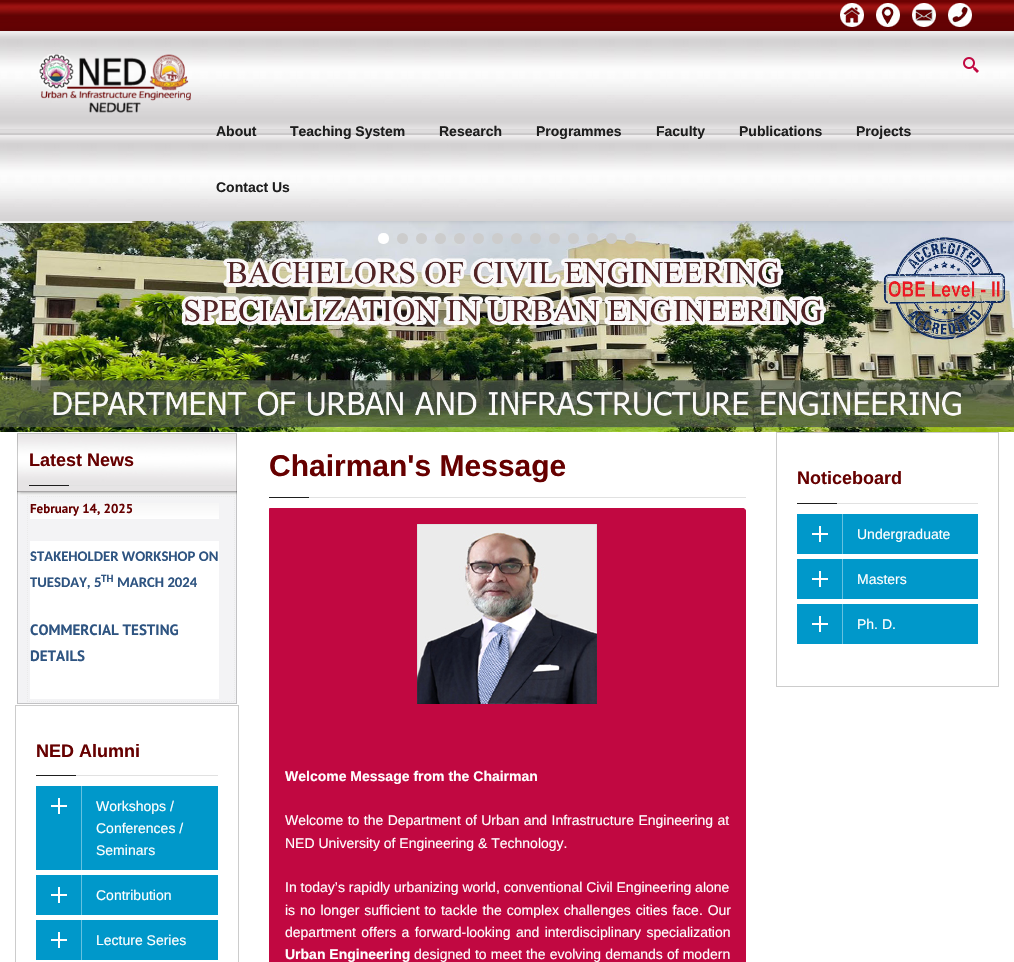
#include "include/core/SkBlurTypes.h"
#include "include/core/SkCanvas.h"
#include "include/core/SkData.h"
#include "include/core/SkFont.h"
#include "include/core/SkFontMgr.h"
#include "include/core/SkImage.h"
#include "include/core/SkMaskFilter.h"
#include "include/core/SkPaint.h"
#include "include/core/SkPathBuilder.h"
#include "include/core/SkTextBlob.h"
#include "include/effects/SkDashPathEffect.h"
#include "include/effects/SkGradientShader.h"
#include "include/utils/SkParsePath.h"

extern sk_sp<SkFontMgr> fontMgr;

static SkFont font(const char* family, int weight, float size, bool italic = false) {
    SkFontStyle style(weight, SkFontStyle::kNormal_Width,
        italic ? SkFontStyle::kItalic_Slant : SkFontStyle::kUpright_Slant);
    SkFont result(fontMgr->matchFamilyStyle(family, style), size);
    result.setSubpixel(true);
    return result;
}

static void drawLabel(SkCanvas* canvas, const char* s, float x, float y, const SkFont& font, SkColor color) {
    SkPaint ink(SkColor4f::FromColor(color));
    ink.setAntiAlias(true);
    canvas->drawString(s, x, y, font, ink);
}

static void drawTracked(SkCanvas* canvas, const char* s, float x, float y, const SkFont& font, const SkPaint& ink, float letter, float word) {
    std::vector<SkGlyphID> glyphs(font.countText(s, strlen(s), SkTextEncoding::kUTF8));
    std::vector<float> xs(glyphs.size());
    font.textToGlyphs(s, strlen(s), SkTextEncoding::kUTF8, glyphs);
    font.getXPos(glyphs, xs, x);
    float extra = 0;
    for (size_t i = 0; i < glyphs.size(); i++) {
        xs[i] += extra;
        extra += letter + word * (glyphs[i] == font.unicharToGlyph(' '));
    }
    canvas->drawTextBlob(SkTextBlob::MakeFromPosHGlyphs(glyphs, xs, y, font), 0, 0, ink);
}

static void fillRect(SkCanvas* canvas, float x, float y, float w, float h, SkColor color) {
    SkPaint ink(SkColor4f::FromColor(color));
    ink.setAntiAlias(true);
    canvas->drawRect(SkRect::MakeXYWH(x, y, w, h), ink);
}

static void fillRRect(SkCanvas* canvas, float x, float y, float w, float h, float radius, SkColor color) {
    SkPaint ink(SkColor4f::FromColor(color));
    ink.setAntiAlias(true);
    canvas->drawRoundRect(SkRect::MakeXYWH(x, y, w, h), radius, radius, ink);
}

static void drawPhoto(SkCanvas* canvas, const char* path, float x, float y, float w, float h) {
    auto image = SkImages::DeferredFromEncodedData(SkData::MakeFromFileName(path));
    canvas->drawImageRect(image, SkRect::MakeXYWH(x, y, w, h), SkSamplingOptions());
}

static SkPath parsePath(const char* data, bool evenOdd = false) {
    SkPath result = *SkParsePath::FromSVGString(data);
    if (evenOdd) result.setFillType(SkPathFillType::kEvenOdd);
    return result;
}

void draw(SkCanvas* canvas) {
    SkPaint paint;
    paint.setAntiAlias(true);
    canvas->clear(0xFFFFFFFF);
    drawPhoto(canvas, "assets/img1.png", 0, 0, 1014, 31);
    drawPhoto(canvas, "assets/img2.png", 840, 3, 24, 24);
    drawPhoto(canvas, "assets/img3.png", 876, 3, 24, 24);
    drawPhoto(canvas, "assets/img4.png", 912, 3, 24, 24);
    drawPhoto(canvas, "assets/img5.png", 948, 3, 24, 24);
    drawPhoto(canvas, "assets/img9.png", 0, 221, 1014, 211);
    fillRect(canvas, 0, 221, 132, 2, 0xFFFFFFFF);
    drawPhoto(canvas, "assets/img10.png", 132, 221, 4, 2);
    paint.setColor(0x26000000);
    paint.setMaskFilter(SkMaskFilter::MakeBlur(kNormal_SkBlurStyle, 2.5f));
    canvas->drawRect(SkRect::MakeXYWH(0, 31, 1014, 190), paint);
    paint.setMaskFilter(nullptr);
    drawPhoto(canvas, "assets/img6.png", 0, 31, 1014, 190);
    drawPhoto(canvas, "assets/img7.png", 39, 54, 152, 59);
    drawPhoto(canvas, "assets/img8.png", 963, 57, 16, 16);
    SkFont font1 = font("Liberation Sans", 700, 14);
    drawLabel(canvas, "About", 216, 136, font1, 0xFF1E1E1E);
    drawLabel(canvas, "Teaching System", 290, 136, font1, 0xFF1E1E1E);
    drawLabel(canvas, "Research", 439, 136, font1, 0xFF1E1E1E);
    drawLabel(canvas, "Programmes", 536, 136, font1, 0xFF1E1E1E);
    drawLabel(canvas, "Faculty", 656, 136, font1, 0xFF1E1E1E);
    drawLabel(canvas, "Publications", 739, 136, font1, 0xFF1E1E1E);
    drawLabel(canvas, "Projects", 856, 136, font1, 0xFF1E1E1E);
    drawLabel(canvas, "Contact Us", 216, 192, font1, 0xFF1E1E1E);
    fillRRect(canvas, 378, 233, 11, 11, 5, 0xFFFFFFFF);
    paint.setColor(0xFFCCCCCC);
    canvas->drawCircle(402.5f, 238.5f, 5.5f, paint);
    canvas->drawCircle(421.5f, 238.5f, 5.5f, paint);
    canvas->drawCircle(440.5f, 238.5f, 5.5f, paint);
    canvas->drawCircle(459.5f, 238.5f, 5.5f, paint);
    canvas->drawCircle(478.5f, 238.5f, 5.5f, paint);
    canvas->drawCircle(497.5f, 238.5f, 5.5f, paint);
    canvas->drawCircle(516.5f, 238.5f, 5.5f, paint);
    canvas->drawCircle(535.5f, 238.5f, 5.5f, paint);
    canvas->drawCircle(554.5f, 238.5f, 5.5f, paint);
    canvas->drawCircle(573.5f, 238.5f, 5.5f, paint);
    canvas->drawCircle(592.5f, 238.5f, 5.5f, paint);
    canvas->drawCircle(611.5f, 238.5f, 5.5f, paint);
    canvas->drawCircle(630.5f, 238.5f, 5.5f, paint);
    drawPhoto(canvas, "assets/img11.png", 17, 433, 220, 271);
    paint.setStroke(true);
    paint.setStrokeWidth(1);
    paint.setColor(0x33000000);
    canvas->drawRect(SkRect::MakeXYWH(17.5f, 433.5f, 219, 270), paint);
    fillRect(canvas, 69, 485, 166, 1, 0xFFE1E1E1);
    SkFont font2 = font("Liberation Sans", 700, 18);
    drawLabel(canvas, "Latest News", 29, 466, font2, 0xFF660000);
    fillRect(canvas, 29, 485, 40, 1, 0xFF1E1E1E);
    paint.setColor(0xFFEBEBEB);
    paint.setPathEffect(SkDashPathEffect::Make({{1, 1}}, 0));
    canvas->drawPath(parsePath("M27 496.5H235"), paint);
    paint.setPathEffect(nullptr);
    paint.setPathEffect(SkDashPathEffect::Make({{1, 1}}, 0));
    canvas->drawPath(parsePath("M234.5 496V702"), paint);
    paint.setPathEffect(nullptr);
    paint.setPathEffect(SkDashPathEffect::Make({{1, 1}}, 0));
    canvas->drawPath(parsePath("M27 701.5H235"), paint);
    paint.setPathEffect(nullptr);
    paint.setPathEffect(SkDashPathEffect::Make({{1, 1}}, 0));
    canvas->drawPath(parsePath("M27.5 496V702"), paint);
    paint.setPathEffect(nullptr);
    paint.setStroke(false);
    {
        const SkColor colors[] = {0xFFF3F3F3, 0xFFFFFFFF};
        const float stops[] = {0, 1};
        const SkPoint ends[] = {{125, 499}, {125, 519}};
        paint.setShader(SkGradientShader::MakeLinear(ends, colors, stops, 2, SkTileMode::kClamp));
        paint.setAlpha(255);
    }
    canvas->drawRect(SkRect::MakeXYWH(30, 503, 189, 16), paint);
    SkFont font3 = font("PT Sans", 700, 13);
    drawLabel(canvas, "February 14, 2025", 30, 513, font3, 0xFF660000);
    fillRect(canvas, 30, 541, 189, 158, 0xFFFFFFFF);
    SkFont font4 = font("Carlito", 700, 14.7f);
    drawLabel(canvas, "STAKEHOLDER WORKSHOP ON", 30, 561, font4, 0xFF2E5481);
    drawLabel(canvas, "TUESDAY, 5", 30, 587, font4, 0xFF2E5481);
    SkFont font5 = font("Carlito", 700, 11);
    drawLabel(canvas, "TH", 101, 582, font5, 0xFF2E5481);
    drawLabel(canvas, "MARCH 2024", 117, 587, font4, 0xFF2E5481);
    SkFont font6 = font("PT Sans", 700, 15);
    drawLabel(canvas, "COMMERCIAL TESTING", 30, 635, font6, 0xFF2E5481);
    drawLabel(canvas, "DETAILS", 30, 661, font6, 0xFF2E5481);
    paint.setStroke(true);
    paint.setShader(nullptr);
    paint.setColor(0xFFCCCCCC);
    canvas->drawRect(SkRect::MakeXYWH(15.5f, 705.5f, 223, 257), paint);
    fillRect(canvas, 76, 775, 142, 1, 0xFFE1E1E1);
    drawLabel(canvas, "NED Alumni", 36, 757, font2, 0xFF660000);
    fillRect(canvas, 36, 775, 40, 1, 0xFF1E1E1E);
    fillRect(canvas, 36, 786, 182, 84, 0xFF0098CA);
    fillRect(canvas, 81, 786, 1, 84, 0xFF66C1DF);
    fillRect(canvas, 51, 805, 16, 2, 0xFFFFFFFF);
    fillRect(canvas, 58, 798, 2, 16, 0xFFFFFFFF);
    SkFont font7 = font("Liberation Sans", 400, 14);
    drawLabel(canvas, "Workshops /", 96, 811, font7, 0xFFFFFFFF);
    drawLabel(canvas, "Conferences /", 96, 833, font7, 0xFFFFFFFF);
    drawLabel(canvas, "Seminars", 96, 855, font7, 0xFFFFFFFF);
    fillRect(canvas, 36, 875, 182, 40, 0xFF0098CA);
    fillRect(canvas, 81, 875, 1, 40, 0xFF66C1DF);
    fillRect(canvas, 51, 894, 16, 2, 0xFFFFFFFF);
    fillRect(canvas, 58, 887, 2, 16, 0xFFFFFFFF);
    drawLabel(canvas, "Contribution", 96, 900, font7, 0xFFFFFFFF);
    fillRect(canvas, 36, 920, 182, 40, 0xFF0098CA);
    fillRect(canvas, 81, 920, 1, 40, 0xFF66C1DF);
    fillRect(canvas, 51, 939, 16, 2, 0xFFFFFFFF);
    fillRect(canvas, 58, 932, 2, 16, 0xFFFFFFFF);
    drawLabel(canvas, "Lecture Series", 96, 945, font7, 0xFFFFFFFF);
    fillRect(canvas, 309, 497, 437, 1, 0xFFE1E1E1);
    SkFont font8 = font("Liberation Sans", 700, 30);
    drawLabel(canvas, "Chairman's Message", 269, 476, font8, 0xFF660000);
    fillRect(canvas, 269, 497, 40, 1, 0xFF1E1E1E);
    paint.setStroke(false);
    paint.setColor(0xFFC10841);
    canvas->drawPath(parsePath("M269.5 508.5H743C744.5 508.5 745.5 509.5 745.5 511V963C745.5 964.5 744.5 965.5 743 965.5H269.5Z"), paint);
    paint.setStroke(true);
    canvas->drawPath(parsePath("M269.5 508.5H743C744.5 508.5 745.5 509.5 745.5 511V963C745.5 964.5 744.5 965.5 743 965.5H269.5Z"), paint);
    drawPhoto(canvas, "assets/img12.png", 417, 524, 180, 180);
    drawLabel(canvas, "Welcome Message from the Chairman", 285, 781, font1, 0xFFFFFFFF);
    paint.setStroke(false);
    paint.setColor(0xFFFFFFFF);
    drawTracked(canvas, "Welcome to the Department of Urban and Infrastructure Engineering at", 285, 825, font7, paint, 0, 0.5f);
    drawLabel(canvas, "NED University of Engineering & Technology.", 285, 848, font7, 0xFFFFFFFF);
    drawLabel(canvas, "In today’s rapidly urbanizing world, conventional Civil Engineering alone", 285, 892, font7, 0xFFFFFFFF);
    drawTracked(canvas, "is no longer sufficient to tackle the complex challenges cities face. Our", 285, 915, font7, paint, 0, 1);
    drawTracked(canvas, "department offers a forward-looking and interdisciplinary specialization", 285, 937, font7, paint, 0, 1.5f);
    drawLabel(canvas, "Urban Engineering", 285, 959, font1, 0xFFFFFFFF);
    drawTracked(canvas, "designed to meet the evolving demands of modern", 414, 959, font7, paint, 0, 0.25f);
    paint.setStroke(true);
    paint.setColor(0xFFCCCCCC);
    canvas->drawRect(SkRect::MakeXYWH(776.5f, 432.5f, 222, 254), paint);
    fillRect(canvas, 837, 503, 141, 1, 0xFFE1E1E1);
    drawLabel(canvas, "Noticeboard", 797, 484, font2, 0xFF660000);
    fillRect(canvas, 797, 503, 40, 1, 0xFF1E1E1E);
    fillRect(canvas, 797, 514, 181, 40, 0xFF0098CA);
    fillRect(canvas, 842, 514, 1, 40, 0xFF66C1DF);
    fillRect(canvas, 812, 533, 16, 2, 0xFFFFFFFF);
    fillRect(canvas, 819, 526, 2, 16, 0xFFFFFFFF);
    drawLabel(canvas, "Undergraduate", 857, 539, font7, 0xFFFFFFFF);
    fillRect(canvas, 797, 559, 181, 40, 0xFF0098CA);
    fillRect(canvas, 842, 559, 1, 40, 0xFF66C1DF);
    fillRect(canvas, 812, 578, 16, 2, 0xFFFFFFFF);
    fillRect(canvas, 819, 571, 2, 16, 0xFFFFFFFF);
    drawLabel(canvas, "Masters", 857, 584, font7, 0xFFFFFFFF);
    fillRect(canvas, 797, 604, 181, 40, 0xFF0098CA);
    fillRect(canvas, 842, 604, 1, 40, 0xFF66C1DF);
    fillRect(canvas, 812, 623, 16, 2, 0xFFFFFFFF);
    fillRect(canvas, 819, 616, 2, 16, 0xFFFFFFFF);
    drawLabel(canvas, "Ph. D.", 857, 629, font7, 0xFFFFFFFF);
}
